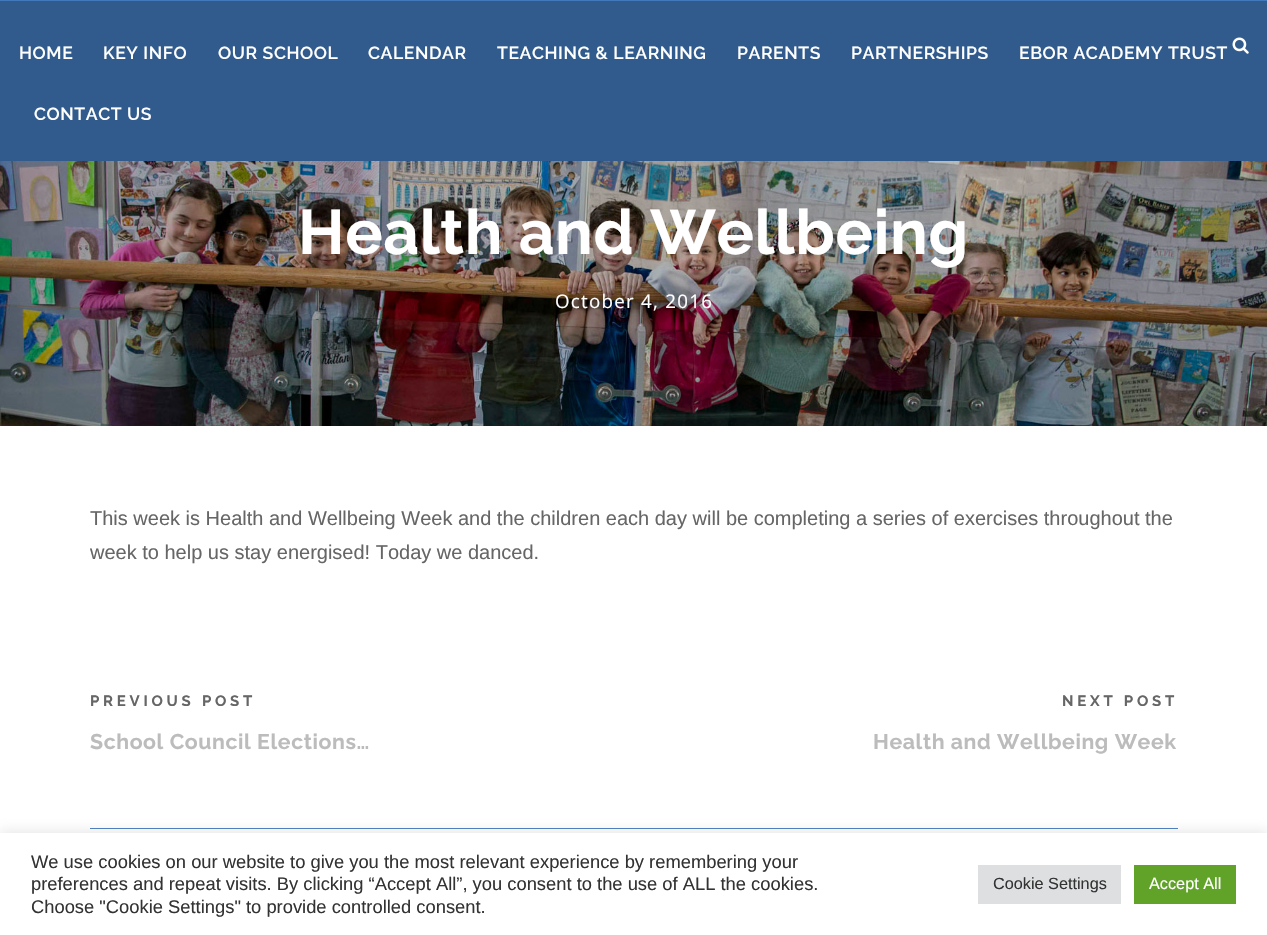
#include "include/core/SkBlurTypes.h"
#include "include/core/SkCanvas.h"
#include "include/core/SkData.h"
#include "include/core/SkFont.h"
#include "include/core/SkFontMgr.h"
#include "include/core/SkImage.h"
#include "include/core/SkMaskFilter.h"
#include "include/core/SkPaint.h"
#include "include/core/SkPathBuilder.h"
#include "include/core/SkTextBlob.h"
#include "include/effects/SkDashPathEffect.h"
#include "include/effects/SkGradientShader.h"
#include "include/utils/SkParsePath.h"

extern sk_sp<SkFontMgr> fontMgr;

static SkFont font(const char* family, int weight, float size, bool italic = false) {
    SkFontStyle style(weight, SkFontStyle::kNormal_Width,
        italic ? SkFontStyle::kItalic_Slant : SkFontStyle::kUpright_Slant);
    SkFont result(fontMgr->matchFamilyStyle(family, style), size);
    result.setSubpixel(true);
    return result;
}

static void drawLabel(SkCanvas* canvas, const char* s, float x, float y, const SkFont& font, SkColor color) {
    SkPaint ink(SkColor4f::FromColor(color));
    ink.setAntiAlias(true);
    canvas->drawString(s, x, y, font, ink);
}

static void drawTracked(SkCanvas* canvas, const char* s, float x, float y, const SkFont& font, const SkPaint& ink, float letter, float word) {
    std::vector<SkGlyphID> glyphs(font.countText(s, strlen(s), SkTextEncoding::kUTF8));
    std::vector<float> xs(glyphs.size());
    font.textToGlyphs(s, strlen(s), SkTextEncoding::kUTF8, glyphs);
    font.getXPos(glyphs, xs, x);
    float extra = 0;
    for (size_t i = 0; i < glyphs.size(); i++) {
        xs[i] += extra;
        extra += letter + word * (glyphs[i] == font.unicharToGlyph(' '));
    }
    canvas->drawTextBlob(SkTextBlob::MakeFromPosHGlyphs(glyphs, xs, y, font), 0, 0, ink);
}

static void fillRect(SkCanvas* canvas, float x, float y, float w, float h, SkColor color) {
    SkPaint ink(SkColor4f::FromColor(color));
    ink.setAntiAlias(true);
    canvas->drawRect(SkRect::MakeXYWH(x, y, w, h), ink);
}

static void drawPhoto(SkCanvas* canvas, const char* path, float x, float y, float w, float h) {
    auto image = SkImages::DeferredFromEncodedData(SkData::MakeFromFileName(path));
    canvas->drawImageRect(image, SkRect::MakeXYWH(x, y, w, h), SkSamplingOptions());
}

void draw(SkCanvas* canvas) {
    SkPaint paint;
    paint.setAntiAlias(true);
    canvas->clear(0xFFFFFFFF);
    fillRect(canvas, 0, 1, 1267, 160, 0xFF315B8C);
    SkFont font1 = font("Raleway", 600, 17.5f);
    paint.setColor(0xFFFFFFFF);
    drawTracked(canvas, "HOME", 19, 59, font1, paint, 0.6f, 0);
    drawTracked(canvas, "KEY INFO", 103, 59, font1, paint, 0.6f, 0);
    drawTracked(canvas, "OUR SCHOOL", 218, 59, font1, paint, 0.6f, 0);
    drawTracked(canvas, "CALENDAR", 368, 59, font1, paint, 0.6f, 0);
    drawTracked(canvas, "TEACHING & LEARNING", 497, 59, font1, paint, 0.6f, 0);
    drawTracked(canvas, "PARENTS", 737, 59, font1, paint, 0.6f, 0);
    drawTracked(canvas, "PARTNERSHIPS", 851, 59, font1, paint, 0.6f, 0);
    drawTracked(canvas, "EBOR ACADEMY TRUST", 1019, 59, font1, paint, 0.6f, 0);
    drawTracked(canvas, "CONTACT US", 34, 120, font1, paint, 0.6f, 0);
    drawPhoto(canvas, "assets/img1.png", 1232, 37, 17, 17);
    fillRect(canvas, 0, 0, 1267, 1, 0xFF4279BD);
    drawPhoto(canvas, "assets/img2.png", 0, 161, 1267, 265);
    SkFont font2 = font("Raleway", 700, 62.5f);
    drawTracked(canvas, "Health and Wellbeing", 298, 254, font2, paint, 0.6f, 0);
    SkFont font3 = font("Open Sans", 400, 18.75f);
    drawTracked(canvas, "October 4, 2016", 555, 308, font3, paint, 1.25f, 0);
    SkFont font4 = font("Liberation Sans", 400, 20);
    drawLabel(canvas, "This week is Health and Wellbeing Week and the children each day will be completing a series of exercises throughout the", 90, 525, font4, 0xFF666666);
    drawLabel(canvas, "week to help us stay energised! Today we danced.", 90, 559, font4, 0xFF666666);
    SkFont font5 = font("Raleway", 700, 15);
    paint.setColor(0xFF666666);
    drawTracked(canvas, "PREVIOUS POST", 90, 706, font5, paint, 3.75f, 0);
    SkFont font6 = font("Raleway", 700, 21.25f);
    paint.setColor(0xFFBCBCBC);
    drawTracked(canvas, "School Council Elections…", 90, 749, font6, paint, 0.6f, 0);
    paint.setColor(0xFF666666);
    drawTracked(canvas, "NEXT POST", 1062, 706, font5, paint, 3.75f, 0);
    paint.setColor(0xFFBCBCBC);
    drawTracked(canvas, "Health and Wellbeing Week", 873, 749, font6, paint, 0.6f, 0);
    fillRect(canvas, 90, 828, 1088, 1, 0xFF4279BD);
    paint.setColor(0x4DACABAB);
    paint.setMaskFilter(SkMaskFilter::MakeBlur(kNormal_SkBlurStyle, 6));
    canvas->drawRect(SkRect::MakeXYWH(0, 831, 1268, 103), paint);
    paint.setMaskFilter(nullptr);
    fillRect(canvas, 0, 833, 1267, 102, 0xFFFFFFFF);
    SkFont font7 = font("Liberation Sans", 400, 18.35f);
    drawLabel(canvas, "We use cookies on our website to give you the most relevant experience by remembering your", 31, 868, font7, 0xFF333333);
    drawLabel(canvas, "preferences and repeat visits. By clicking “Accept All”, you consent to the use of ALL the cookies.", 31, 890, font7, 0xFF333333);
    drawLabel(canvas, "Choose \"Cookie Settings\" to provide controlled consent.", 31, 913, font7, 0xFF333333);
    fillRect(canvas, 978, 865, 143, 39, 0xFFDEDFE0);
    SkFont font8 = font("Liberation Sans", 400, 16.25f);
    drawLabel(canvas, "Cookie Settings", 993, 889, font8, 0xFF333333);
    fillRect(canvas, 1134, 865, 102, 39, 0xFF61A229);
    drawLabel(canvas, "Accept All", 1149, 889, font8, 0xFFFFFFFF);
}
